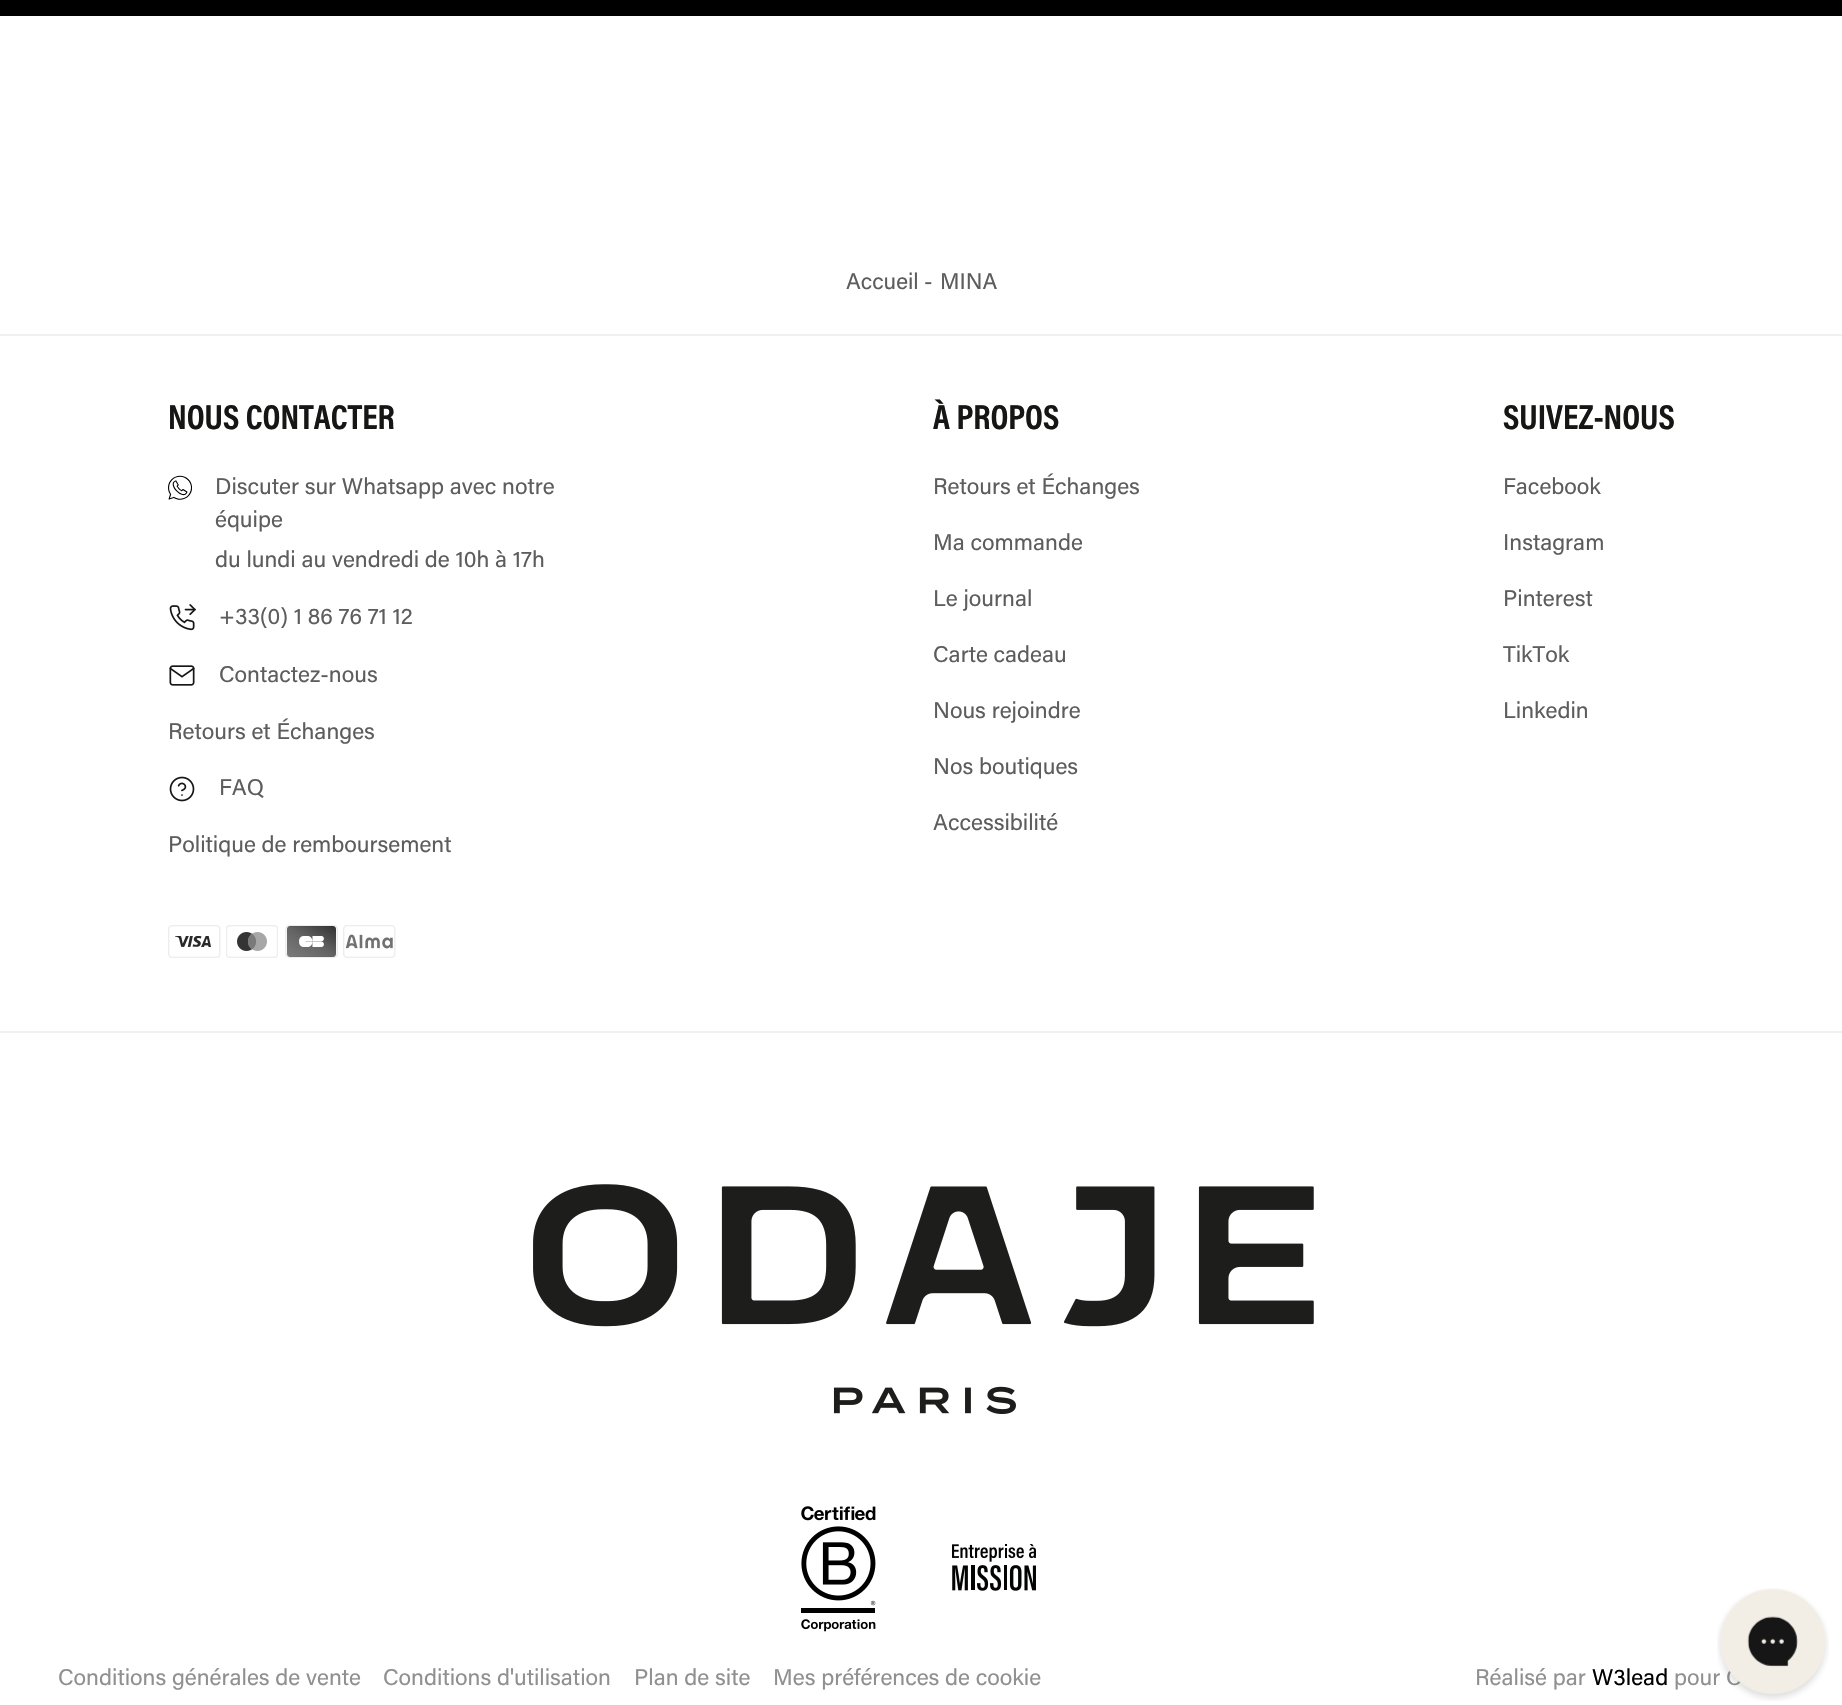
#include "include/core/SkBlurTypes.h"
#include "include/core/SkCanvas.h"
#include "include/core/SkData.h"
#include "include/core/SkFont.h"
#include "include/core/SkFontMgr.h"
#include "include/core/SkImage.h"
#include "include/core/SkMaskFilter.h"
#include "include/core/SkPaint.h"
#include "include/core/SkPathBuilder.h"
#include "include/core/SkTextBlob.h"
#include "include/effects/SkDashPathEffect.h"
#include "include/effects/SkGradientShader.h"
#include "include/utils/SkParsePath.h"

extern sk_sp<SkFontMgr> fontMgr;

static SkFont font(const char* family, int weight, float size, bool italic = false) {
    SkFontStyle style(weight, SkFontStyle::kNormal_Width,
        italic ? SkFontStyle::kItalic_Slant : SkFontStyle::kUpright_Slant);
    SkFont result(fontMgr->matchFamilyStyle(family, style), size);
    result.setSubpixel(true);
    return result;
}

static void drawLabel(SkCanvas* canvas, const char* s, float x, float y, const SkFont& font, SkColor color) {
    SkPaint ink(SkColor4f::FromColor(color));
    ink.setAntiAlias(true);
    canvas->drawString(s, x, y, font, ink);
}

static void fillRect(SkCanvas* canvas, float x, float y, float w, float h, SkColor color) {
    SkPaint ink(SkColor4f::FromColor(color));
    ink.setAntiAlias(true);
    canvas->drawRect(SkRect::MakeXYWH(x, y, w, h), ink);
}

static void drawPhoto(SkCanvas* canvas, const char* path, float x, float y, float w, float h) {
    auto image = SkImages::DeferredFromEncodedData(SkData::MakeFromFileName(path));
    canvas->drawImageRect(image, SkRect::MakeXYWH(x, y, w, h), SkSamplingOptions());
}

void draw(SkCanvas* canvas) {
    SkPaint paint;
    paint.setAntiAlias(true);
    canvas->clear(0xFFFFFFFF);
    fillRect(canvas, 0, 0, 1842, 16, 0xFF000000);
    SkFont font1 = font("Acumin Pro", 400, 22.5f);
    drawLabel(canvas, "Accueil", 846, 289, font1, 0xFF5D5D5D);
    SkFont font2 = font("Acumin Pro", 400, 22.75f);
    drawLabel(canvas, "-", 924, 289, font2, 0xFF5D5D5D);
    drawLabel(canvas, "MINA", 940, 289, font1, 0xFF5D5D5D);
    fillRect(canvas, 0, 334, 1842, 2, 0xFFF0F0F0);
    fillRect(canvas, 0, 1031, 1842, 2, 0xFFF0F0F0);
    SkFont font3 = font("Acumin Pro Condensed", 700, 35);
    drawLabel(canvas, "NOUS CONTACTER", 168, 429, font3, 0xFF161615);
    drawPhoto(canvas, "assets/img1.png", 168, 475, 24, 25);
    drawLabel(canvas, "Discuter sur Whatsapp avec notre", 215, 494, font2, 0xFF5D5D5D);
    drawLabel(canvas, "équipe", 215, 527, font2, 0xFF5D5D5D);
    drawLabel(canvas, "du lundi au vendredi de 10h à 17h", 215, 567, font2, 0xFF5D5D5D);
    drawPhoto(canvas, "assets/img2.png", 169, 604, 27, 27);
    drawLabel(canvas, "+33(0) 1 86 76 71 12", 219, 624, font2, 0xFF5D5D5D);
    drawPhoto(canvas, "assets/img3.png", 169, 665, 26, 21);
    drawLabel(canvas, "Contactez-nous", 219, 682, font2, 0xFF5D5D5D);
    drawLabel(canvas, "Retours et Échanges", 168, 739, font2, 0xFF5D5D5D);
    drawPhoto(canvas, "assets/img4.png", 169, 776, 26, 26);
    drawLabel(canvas, "FAQ", 219, 795, font2, 0xFF5D5D5D);
    drawLabel(canvas, "Politique de remboursement", 168, 852, font2, 0xFF5D5D5D);
    drawLabel(canvas, "À PROPOS", 933, 429, font3, 0xFF161615);
    drawLabel(canvas, "Retours et Échanges", 933, 494, font2, 0xFF5D5D5D);
    drawLabel(canvas, "Ma commande", 933, 550, font2, 0xFF5D5D5D);
    drawLabel(canvas, "Le journal", 933, 606, font2, 0xFF5D5D5D);
    drawLabel(canvas, "Carte cadeau", 933, 662, font2, 0xFF5D5D5D);
    drawLabel(canvas, "Nous rejoindre", 933, 718, font2, 0xFF5D5D5D);
    drawLabel(canvas, "Nos boutiques", 933, 774, font2, 0xFF5D5D5D);
    drawLabel(canvas, "Accessibilité", 933, 830, font2, 0xFF5D5D5D);
    drawLabel(canvas, "SUIVEZ-NOUS", 1503, 429, font3, 0xFF161615);
    drawLabel(canvas, "Facebook", 1503, 494, font2, 0xFF5D5D5D);
    drawLabel(canvas, "Instagram", 1503, 550, font2, 0xFF5D5D5D);
    drawLabel(canvas, "Pinterest", 1503, 606, font2, 0xFF5D5D5D);
    drawLabel(canvas, "TikTok", 1503, 662, font2, 0xFF5D5D5D);
    drawLabel(canvas, "Linkedin", 1503, 718, font2, 0xFF5D5D5D);
    drawPhoto(canvas, "assets/img5.png", 168, 925, 53, 33);
    drawPhoto(canvas, "assets/img6.png", 226, 925, 52, 33);
    drawPhoto(canvas, "assets/img7.png", 285, 925, 53, 33);
    drawPhoto(canvas, "assets/img8.png", 343, 925, 53, 33);
    drawPhoto(canvas, "assets/img9.png", 533, 1184, 781, 230);
    drawPhoto(canvas, "assets/img10.png", 801, 1506, 75, 126);
    drawPhoto(canvas, "assets/img11.png", 952, 1544, 84, 47);
    drawLabel(canvas, "Conditions générales de vente", 58, 1685, font2, 0xFF909090);
    drawLabel(canvas, "Conditions d'utilisation", 383, 1685, font2, 0xFF909090);
    drawLabel(canvas, "Plan de site", 634, 1685, font2, 0xFF909090);
    drawLabel(canvas, "Mes préférences de cookie", 773, 1685, font2, 0xFF909090);
    drawLabel(canvas, "Réalisé par", 1475, 1685, font2, 0xFF909090);
    drawLabel(canvas, "W3lead", 1592, 1685, font2, 0xFF000000);
    drawLabel(canvas, "pour O", 1674, 1685, font2, 0xFF909090);
    drawPhoto(canvas, "assets/img12.png", 1717, 1588, 112, 113);
}
